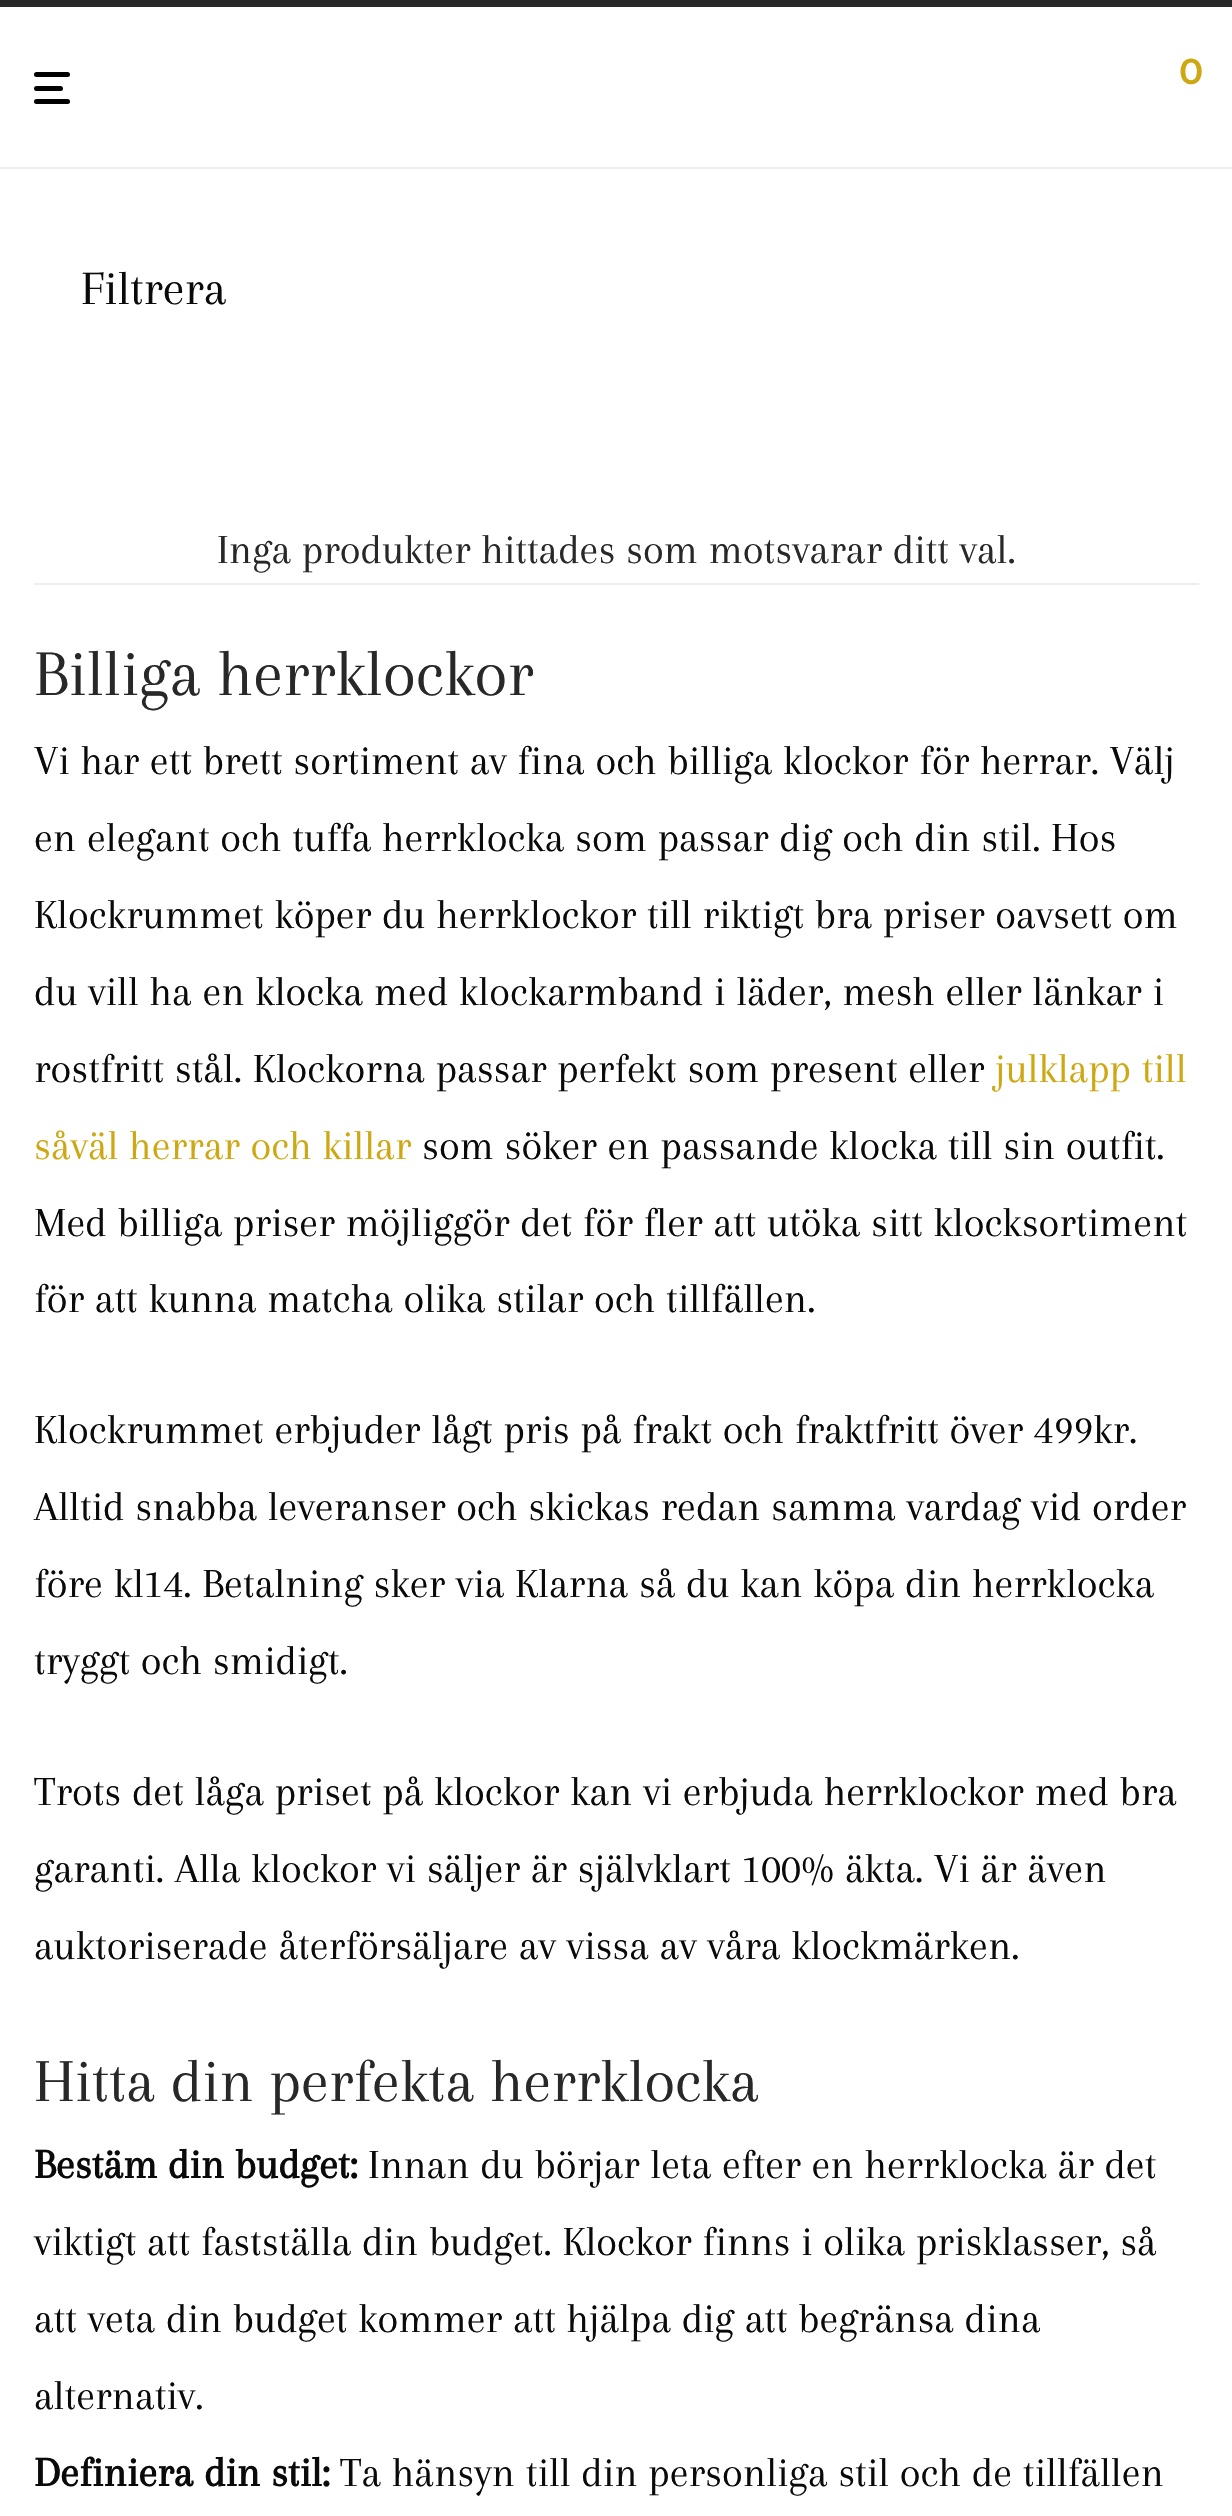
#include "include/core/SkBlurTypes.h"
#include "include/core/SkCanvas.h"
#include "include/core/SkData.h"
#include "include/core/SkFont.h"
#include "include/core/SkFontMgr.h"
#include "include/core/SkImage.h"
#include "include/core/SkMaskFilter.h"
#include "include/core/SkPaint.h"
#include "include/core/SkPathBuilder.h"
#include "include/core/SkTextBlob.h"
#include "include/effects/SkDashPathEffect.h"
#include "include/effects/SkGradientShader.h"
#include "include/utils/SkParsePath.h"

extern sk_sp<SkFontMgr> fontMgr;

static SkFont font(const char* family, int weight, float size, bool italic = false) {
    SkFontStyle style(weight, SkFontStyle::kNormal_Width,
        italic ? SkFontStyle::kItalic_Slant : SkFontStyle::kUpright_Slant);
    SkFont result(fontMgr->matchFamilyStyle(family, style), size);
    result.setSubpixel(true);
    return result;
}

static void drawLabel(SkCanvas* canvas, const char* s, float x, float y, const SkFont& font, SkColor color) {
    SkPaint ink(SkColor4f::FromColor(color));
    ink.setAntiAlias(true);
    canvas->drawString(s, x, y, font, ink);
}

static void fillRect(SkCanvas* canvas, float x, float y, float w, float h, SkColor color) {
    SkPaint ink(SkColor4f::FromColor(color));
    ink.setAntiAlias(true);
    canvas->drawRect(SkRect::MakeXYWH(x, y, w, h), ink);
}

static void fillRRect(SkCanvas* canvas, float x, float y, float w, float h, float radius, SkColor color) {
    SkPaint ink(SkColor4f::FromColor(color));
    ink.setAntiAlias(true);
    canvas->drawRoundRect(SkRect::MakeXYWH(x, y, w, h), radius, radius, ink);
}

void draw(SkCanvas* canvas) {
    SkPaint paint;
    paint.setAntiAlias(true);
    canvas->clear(0xFFFFFFFF);
    fillRect(canvas, 0, 0, 1232, 7, 0xFF282828);
    fillRect(canvas, 0, 167, 1232, 2, 0xFFEEEEEE);
    fillRRect(canvas, 34, 72, 36, 5, 2.5f, 0xFF000000);
    fillRRect(canvas, 34, 86, 29, 5, 2.5f, 0xFF000000);
    fillRRect(canvas, 34, 99, 36, 5, 2.5f, 0xFF000000);
    SkFont font1 = font("Montserrat", 600, 36);
    drawLabel(canvas, "0", 1179, 84, font1, 0xFFCEA812);
    SkFont font2 = font("Arapey", 400, 49.5f);
    drawLabel(canvas, "Filtrera", 81, 304, font2, 0xFF0A0A0A);
    SkFont font3 = font("Arapey", 400, 42.75f);
    drawLabel(canvas, "Inga produkter hittades som motsvarar ditt val.", 217, 563, font3, 0xFF282828);
    fillRect(canvas, 34, 583, 1165, 2, 0xFFEEEEEE);
    SkFont font4 = font("Arapey", 400, 67.5f);
    drawLabel(canvas, "Billiga herrklockor", 34, 695, font4, 0xFF282828);
    drawLabel(canvas, "Vi har ett brett sortiment av fina och billiga klockor för herrar. Välj", 34, 774, font3, 0xFF0A0A0A);
    drawLabel(canvas, "en elegant och tuffa herrklocka som passar dig och din stil. Hos", 34, 851, font3, 0xFF0A0A0A);
    drawLabel(canvas, "Klockrummet köper du herrklockor till riktigt bra priser oavsett om", 34, 928, font3, 0xFF0A0A0A);
    drawLabel(canvas, "du vill ha en klocka med klockarmband i läder, mesh eller länkar i", 34, 1005, font3, 0xFF0A0A0A);
    drawLabel(canvas, "rostfritt stål. Klockorna passar perfekt som present eller", 34, 1082, font3, 0xFF0A0A0A);
    drawLabel(canvas, "julklapp till", 995, 1082, font3, 0xFFCEA812);
    drawLabel(canvas, "såväl herrar och killar", 34, 1159, font3, 0xFFCEA812);
    drawLabel(canvas, "som söker en passande klocka till sin outfit.", 422, 1159, font3, 0xFF0A0A0A);
    drawLabel(canvas, "Med billiga priser möjliggör det för fler att utöka sitt klocksortiment", 34, 1236, font3, 0xFF0A0A0A);
    drawLabel(canvas, "för att kunna matcha olika stilar och tillfällen.", 34, 1312, font3, 0xFF0A0A0A);
    drawLabel(canvas, "Klockrummet erbjuder lågt pris på frakt och fraktfritt över 499kr.", 34, 1443, font3, 0xFF0A0A0A);
    drawLabel(canvas, "Alltid snabba leveranser och skickas redan samma vardag vid order", 34, 1520, font3, 0xFF0A0A0A);
    drawLabel(canvas, "före kl14. Betalning sker via Klarna så du kan köpa din herrklocka", 34, 1597, font3, 0xFF0A0A0A);
    drawLabel(canvas, "tryggt och smidigt.", 34, 1674, font3, 0xFF0A0A0A);
    drawLabel(canvas, "Trots det låga priset på klockor kan vi erbjuda herrklockor med bra", 34, 1805, font3, 0xFF0A0A0A);
    drawLabel(canvas, "garanti. Alla klockor vi säljer är självklart 100% äkta. Vi är även", 34, 1882, font3, 0xFF0A0A0A);
    drawLabel(canvas, "auktoriserade återförsäljare av vissa av våra klockmärken.", 34, 1959, font3, 0xFF0A0A0A);
    SkFont font5 = font("Arapey", 400, 63);
    drawLabel(canvas, "Hitta din perfekta herrklocka", 34, 2101, font5, 0xFF282828);
    SkFont font6 = font("Arapey", 700, 42.75f);
    drawLabel(canvas, "Bestäm din budget:", 34, 2178, font6, 0xFF0A0A0A);
    drawLabel(canvas, "Innan du börjar leta efter en herrklocka är det", 368, 2178, font3, 0xFF0A0A0A);
    drawLabel(canvas, "viktigt att fastställa din budget. Klockor finns i olika prisklasser, så", 34, 2255, font3, 0xFF0A0A0A);
    drawLabel(canvas, "att veta din budget kommer att hjälpa dig att begränsa dina", 34, 2332, font3, 0xFF0A0A0A);
    drawLabel(canvas, "alternativ.", 34, 2409, font3, 0xFF0A0A0A);
    drawLabel(canvas, "Definiera din stil:", 34, 2486, font6, 0xFF0A0A0A);
    drawLabel(canvas, "Ta hänsyn till din personliga stil och de tillfällen", 340, 2486, font3, 0xFF0A0A0A);
}
